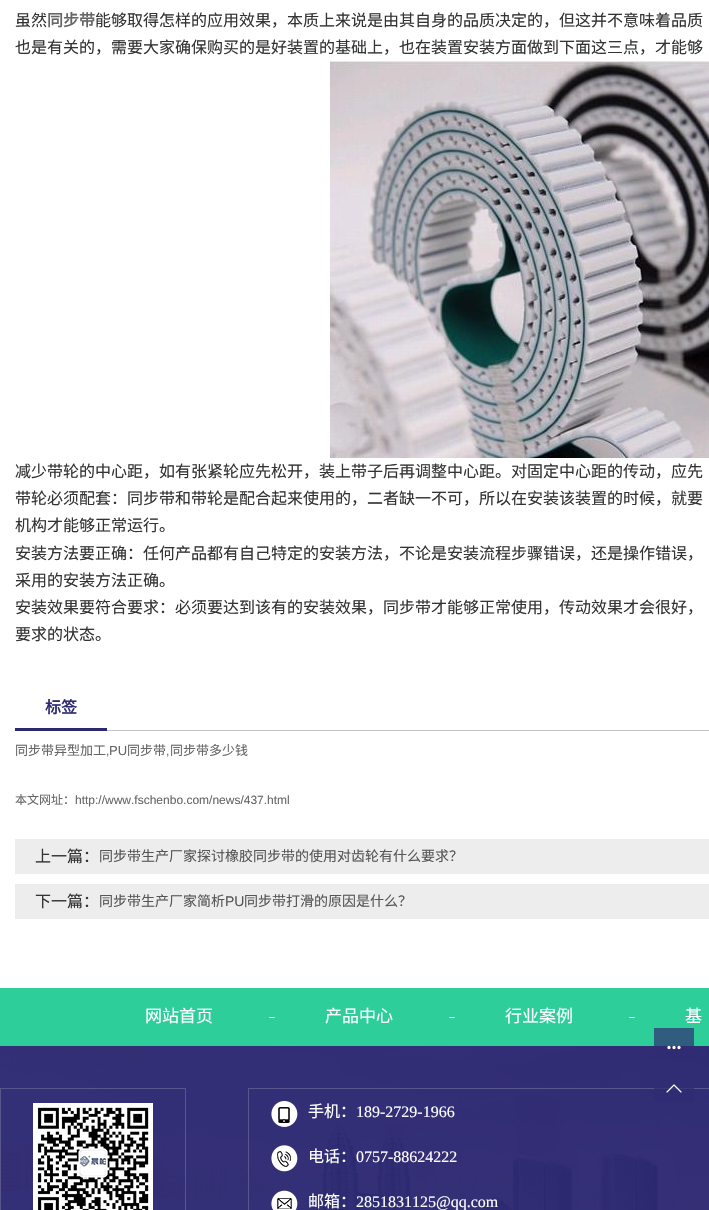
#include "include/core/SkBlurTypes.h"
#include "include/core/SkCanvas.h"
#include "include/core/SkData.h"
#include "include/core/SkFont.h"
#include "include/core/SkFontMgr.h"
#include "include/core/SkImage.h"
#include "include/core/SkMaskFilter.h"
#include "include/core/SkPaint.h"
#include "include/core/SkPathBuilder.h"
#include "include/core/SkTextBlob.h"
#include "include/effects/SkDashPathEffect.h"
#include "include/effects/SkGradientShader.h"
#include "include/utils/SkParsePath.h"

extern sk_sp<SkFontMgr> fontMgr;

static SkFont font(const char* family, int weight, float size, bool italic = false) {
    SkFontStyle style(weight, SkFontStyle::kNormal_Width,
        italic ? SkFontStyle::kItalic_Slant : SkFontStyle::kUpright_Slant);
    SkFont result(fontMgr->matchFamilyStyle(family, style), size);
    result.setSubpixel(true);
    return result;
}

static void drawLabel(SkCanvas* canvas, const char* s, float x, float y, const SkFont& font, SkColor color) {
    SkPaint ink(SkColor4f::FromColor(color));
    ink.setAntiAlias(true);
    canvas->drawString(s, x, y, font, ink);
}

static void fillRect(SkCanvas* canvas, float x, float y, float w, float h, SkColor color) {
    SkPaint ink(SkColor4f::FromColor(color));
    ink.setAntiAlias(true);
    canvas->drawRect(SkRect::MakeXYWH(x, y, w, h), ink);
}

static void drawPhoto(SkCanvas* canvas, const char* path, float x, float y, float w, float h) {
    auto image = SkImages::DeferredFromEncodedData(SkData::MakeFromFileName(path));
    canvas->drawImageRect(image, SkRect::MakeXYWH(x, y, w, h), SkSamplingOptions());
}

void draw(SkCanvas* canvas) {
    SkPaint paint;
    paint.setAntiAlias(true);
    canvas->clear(0xFFFFFFFF);
    SkFont font1 = font("Noto Sans CJK SC", 400, 16);
    drawLabel(canvas, "虽然", 15, 26, font1, 0xFF333333);
    SkFont font2 = font("Noto Sans CJK SC", 700, 16);
    drawLabel(canvas, "同步带", 47, 26, font2, 0xFF666666);
    drawLabel(canvas, "能够取得怎样的应用效果，本质上来说是由其自身的品质决定的，但这并不意味着品质", 95, 26, font1, 0xFF333333);
    drawLabel(canvas, "也是有关的，需要大家确保购买的是好装置的基础上，也在装置安装方面做到下面这三点，才能够", 15, 53, font1, 0xFF333333);
    drawPhoto(canvas, "assets/img1.png", 330, 61, 379, 397);
    drawLabel(canvas, "减少带轮的中心距，如有张紧轮应先松开，装上带子后再调整中心距。对固定中心距的传动，应先", 15, 477, font1, 0xFF333333);
    drawLabel(canvas, "带轮必须配套：同步带和带轮是配合起来使用的，二者缺一不可，所以在安装该装置的时候，就要", 15, 504, font1, 0xFF333333);
    drawLabel(canvas, "机构才能够正常运行。", 15, 531, font1, 0xFF333333);
    drawLabel(canvas, "安装方法要正确：任何产品都有自己特定的安装方法，不论是安装流程步骤错误，还是操作错误，", 15, 559, font1, 0xFF333333);
    drawLabel(canvas, "采用的安装方法正确。", 15, 586, font1, 0xFF333333);
    drawLabel(canvas, "安装效果要符合要求：必须要达到该有的安装效果，同步带才能够正常使用，传动效果才会很好，", 15, 613, font1, 0xFF333333);
    drawLabel(canvas, "要求的状态。", 15, 640, font1, 0xFF333333);
    fillRect(canvas, 107, 730, 602, 1, 0xFFC3C3C3);
    fillRect(canvas, 15, 728, 92, 3, 0xFF2C2870);
    drawLabel(canvas, "标签", 45, 713, font2, 0xFF2F2B72);
    SkFont font3 = font("Noto Sans CJK SC", 400, 13);
    drawLabel(canvas, "同步带异型加工", 15, 755, font3, 0xFF666666);
    SkFont font4 = font("Liberation Sans", 400, 12);
    drawLabel(canvas, ",", 106, 755, font4, 0xFF666666);
    SkFont font5 = font("Liberation Sans", 400, 13);
    drawLabel(canvas, "PU", 109, 755, font5, 0xFF666666);
    drawLabel(canvas, "同步带", 127, 755, font3, 0xFF666666);
    drawLabel(canvas, ",", 166, 755, font4, 0xFF666666);
    drawLabel(canvas, "同步带多少钱", 170, 755, font3, 0xFF666666);
    SkFont font6 = font("Noto Sans CJK SC", 400, 12);
    drawLabel(canvas, "本文网址：", 15, 804, font6, 0xFF666666);
    drawLabel(canvas, "http://www.fschenbo.com/news/437.html", 75, 804, font4, 0xFF666666);
    fillRect(canvas, 15, 839, 694, 35, 0xFFEDEDED);
    drawLabel(canvas, "上一篇：", 35, 862, font1, 0xFF333333);
    SkFont font7 = font("Noto Sans CJK SC", 400, 14);
    drawLabel(canvas, "同步带生产厂家探讨橡胶同步带的使用对齿轮有什么要求？", 99, 861, font7, 0xFF565656);
    fillRect(canvas, 15, 884, 694, 35, 0xFFEDEDED);
    drawLabel(canvas, "下一篇：", 35, 907, font1, 0xFF333333);
    drawLabel(canvas, "同步带生产厂家简析", 99, 906, font7, 0xFF565656);
    SkFont font8 = font("Liberation Sans", 400, 14);
    drawLabel(canvas, "PU", 225, 906, font8, 0xFF565656);
    drawLabel(canvas, "同步带打滑的原因是什么？", 244, 906, font7, 0xFF565656);
    fillRect(canvas, 0, 988, 709, 58, 0xFF2ECE9B);
    drawPhoto(canvas, "assets/img5.png", 0, 1046, 709, 164);
    fillRect(canvas, 654, 1028, 40, 26, 0xB32F2B72);
    drawPhoto(canvas, "assets/img2.png", 667, 1045, 14, 5);
    paint.setStroke(true);
    paint.setStrokeWidth(1);
    paint.setColor(0xFF59558D);
    canvas->drawRect(SkRect::MakeXYWH(248.5f, 1088.5f, 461, 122), paint);
    fillRect(canvas, 654, 1088, 40, 14, 0xB32F2B72);
    drawPhoto(canvas, "assets/img3.png", 666, 1084, 16, 9);
    SkFont font9 = font("Noto Sans CJK SC", 400, 17);
    drawLabel(canvas, "网站首页", 145, 1022, font9, 0xFFFFFFFF);
    drawPhoto(canvas, "assets/img4.png", 269, 1017, 6, 1);
    drawLabel(canvas, "产品中心", 325, 1022, font9, 0xFFFFFFFF);
    drawPhoto(canvas, "assets/img4.png", 449, 1017, 6, 1);
    drawLabel(canvas, "行业案例", 505, 1022, font9, 0xFFFFFFFF);
    drawPhoto(canvas, "assets/img4.png", 629, 1017, 6, 1);
    drawLabel(canvas, "基", 685, 1022, font9, 0xFFFFFFFF);
    canvas->drawRect(SkRect::MakeXYWH(0.5f, 1088.5f, 185, 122), paint);
    drawPhoto(canvas, "assets/img6.png", 33, 1103, 120, 107);
    drawPhoto(canvas, "assets/img7.png", 271, 1101, 27, 26);
    drawLabel(canvas, "手机：", 308, 1117, font1, 0xFFFFFFFF);
    SkFont font10 = font("Liberation Serif", 400, 16);
    drawLabel(canvas, "189-2729-1966", 356, 1117, font10, 0xFFFFFFFF);
    drawPhoto(canvas, "assets/img8.png", 271, 1145, 27, 27);
    drawLabel(canvas, "电话：", 308, 1162, font1, 0xFFFFFFFF);
    drawLabel(canvas, "0757-88624222", 356, 1162, font10, 0xFFFFFFFF);
    drawPhoto(canvas, "assets/img9.png", 271, 1190, 27, 20);
    drawLabel(canvas, "邮箱：", 308, 1207, font1, 0xFFFFFFFF);
    drawLabel(canvas, "2851831125@qq.com", 356, 1207, font10, 0xFFFFFFFF);
}
